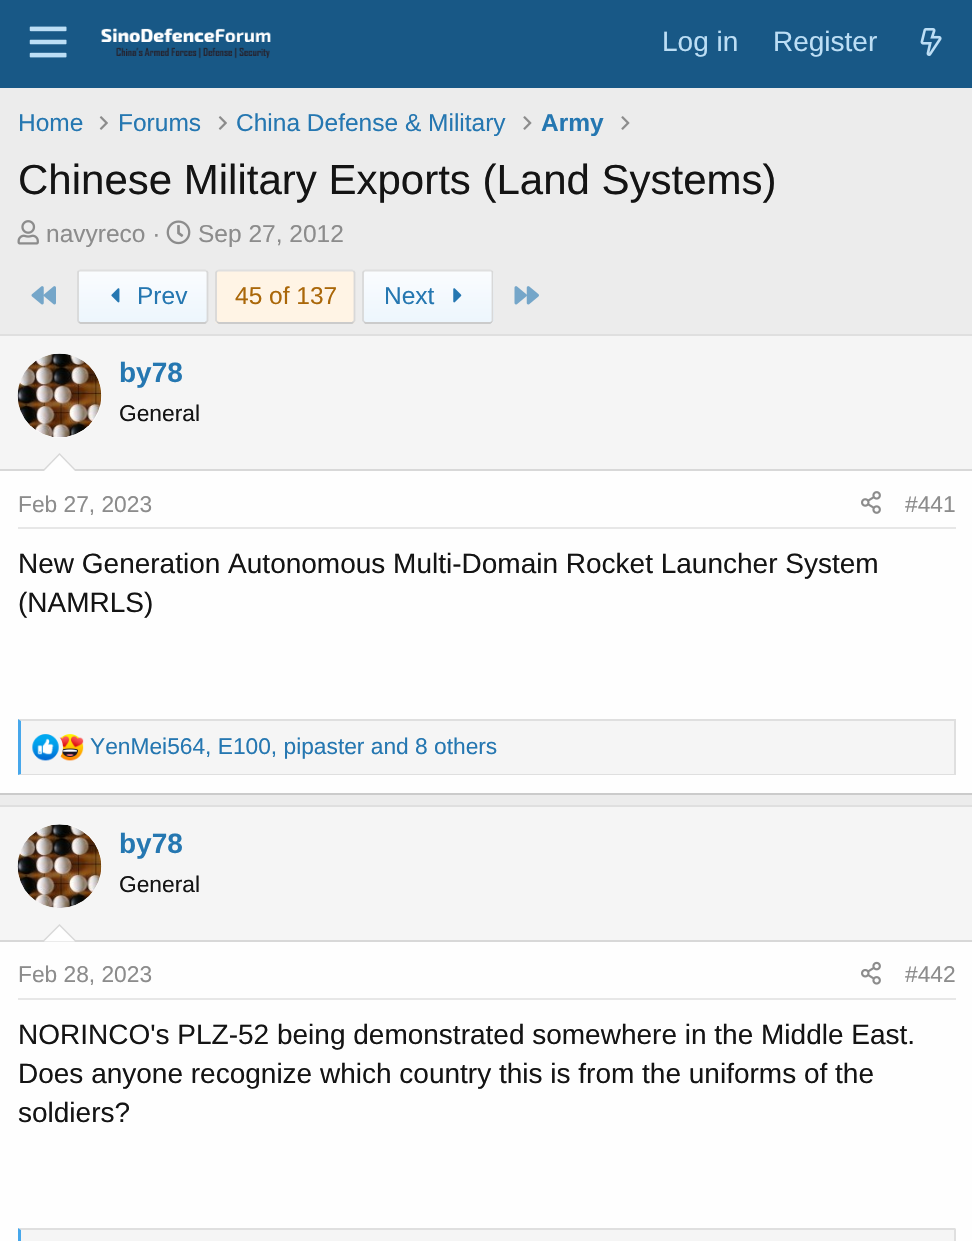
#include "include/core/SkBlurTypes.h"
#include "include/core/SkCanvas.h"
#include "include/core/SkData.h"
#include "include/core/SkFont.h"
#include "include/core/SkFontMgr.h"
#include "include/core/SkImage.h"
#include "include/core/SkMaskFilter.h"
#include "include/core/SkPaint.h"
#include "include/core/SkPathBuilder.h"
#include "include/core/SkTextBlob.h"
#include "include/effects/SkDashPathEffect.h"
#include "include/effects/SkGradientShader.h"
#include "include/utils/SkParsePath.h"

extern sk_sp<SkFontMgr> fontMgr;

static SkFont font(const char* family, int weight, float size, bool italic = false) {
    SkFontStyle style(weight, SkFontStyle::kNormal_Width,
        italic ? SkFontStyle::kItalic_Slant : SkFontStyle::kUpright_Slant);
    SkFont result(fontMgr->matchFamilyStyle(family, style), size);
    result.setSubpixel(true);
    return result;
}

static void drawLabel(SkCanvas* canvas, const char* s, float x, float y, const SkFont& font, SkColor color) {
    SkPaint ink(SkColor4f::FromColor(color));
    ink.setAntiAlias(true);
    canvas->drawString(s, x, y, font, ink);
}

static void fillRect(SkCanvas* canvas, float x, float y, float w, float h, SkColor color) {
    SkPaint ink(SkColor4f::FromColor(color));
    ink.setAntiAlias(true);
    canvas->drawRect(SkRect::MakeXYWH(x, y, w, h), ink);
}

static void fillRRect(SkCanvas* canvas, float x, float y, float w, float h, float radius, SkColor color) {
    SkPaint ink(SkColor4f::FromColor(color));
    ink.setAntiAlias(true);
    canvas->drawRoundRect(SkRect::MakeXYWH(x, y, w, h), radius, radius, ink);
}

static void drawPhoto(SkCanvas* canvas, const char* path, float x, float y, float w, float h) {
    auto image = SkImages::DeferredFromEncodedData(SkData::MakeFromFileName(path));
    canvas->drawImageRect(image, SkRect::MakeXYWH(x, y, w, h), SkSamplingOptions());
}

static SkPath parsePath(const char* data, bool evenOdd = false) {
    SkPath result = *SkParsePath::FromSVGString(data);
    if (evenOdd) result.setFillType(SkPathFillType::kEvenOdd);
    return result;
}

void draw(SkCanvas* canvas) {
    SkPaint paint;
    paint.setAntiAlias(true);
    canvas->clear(0xFFECECEC);
    fillRect(canvas, 0, 0, 972, 88, 0xFF185886);
    drawPhoto(canvas, "assets/img1.png", 29, 26, 38, 32);
    drawPhoto(canvas, "assets/img2.png", 101, 28, 170, 31);
    SkFont font1 = font("Liberation Sans", 400, 28);
    drawLabel(canvas, "Log in", 662, 51, font1, 0xFFBCDEF5);
    drawLabel(canvas, "Register", 773, 51, font1, 0xFFBCDEF5);
    drawPhoto(canvas, "assets/img3.png", 920, 28, 22, 28);
    SkFont font2 = font("Liberation Sans", 400, 24.5f);
    drawLabel(canvas, "Home", 18, 131, font2, 0xFF2577B1);
    drawPhoto(canvas, "assets/img4.png", 99, 116, 9, 14);
    drawLabel(canvas, "Forums", 118, 131, font2, 0xFF2577B1);
    drawPhoto(canvas, "assets/img4.png", 218, 116, 9, 14);
    drawLabel(canvas, "China Defense & Military", 236, 131, font2, 0xFF2577B1);
    drawPhoto(canvas, "assets/img5.png", 523, 116, 9, 14);
    SkFont font3 = font("Liberation Sans", 700, 24.5f);
    drawLabel(canvas, "Army", 541, 131, font3, 0xFF2577B1);
    drawPhoto(canvas, "assets/img5.png", 621, 116, 9, 14);
    SkFont font4 = font("Liberation Sans", 400, 42);
    drawLabel(canvas, "Chinese Military Exports (Land Systems)", 18, 194, font4, 0xFF141414);
    drawPhoto(canvas, "assets/img6.png", 17, 220, 22, 25);
    drawLabel(canvas, "navyreco ·", 46, 242, font2, 0xFF8C8C8C);
    drawPhoto(canvas, "assets/img7.png", 166, 220, 25, 25);
    drawLabel(canvas, "Sep 27, 2012", 198, 242, font2, 0xFF8C8C8C);
    drawPhoto(canvas, "assets/img8.png", 31, 286, 25, 19);
    canvas->save();
    canvas->clipPath(parsePath("M81 270H204C206 270 208 272 208 274V320C208 322 206 324 204 324H81C79 324 77 322 77 320V274C77 272 79 270 81 270Z"), true);
    {
        const SkColor colors[] = {0xFFEDF6FD, 0xFFFAFCFE};
        const float stops[] = {0, 1};
        const SkPoint ends[] = {{143, 322}, {143, 271}};
        paint.setShader(SkGradientShader::MakeLinear(ends, colors, stops, 2, SkTileMode::kClamp));
        paint.setAlpha(255);
    }
    canvas->drawRect(SkRect::MakeXYWH(77, 271, 131, 51), paint);
    {
        const SkColor colors[] = {0xFFEDF6FD, 0xFFFAFCFE};
        const float stops[] = {0, 1};
        const SkPoint ends[] = {{143, 373}, {143, 322}};
        paint.setShader(SkGradientShader::MakeLinear(ends, colors, stops, 2, SkTileMode::kClamp));
        paint.setAlpha(255);
    }
    canvas->drawRect(SkRect::MakeXYWH(77, 322, 131, 2), paint);
    canvas->restore();
    paint.setStroke(true);
    paint.setStrokeWidth(1.8f);
    paint.setShader(nullptr);
    paint.setColor(0xFFDFDFDF);
    canvas->drawPath(parsePath("M78.5 271L80.5 270.5H205L206.5 271"), paint);
    paint.setColor(0xFFD8D8D8);
    canvas->drawPath(parsePath("M206.5 271L207.5 272.5V320.5L206.5 322"), paint);
    paint.setColor(0xFFCBCBCB);
    canvas->drawPath(parsePath("M206.5 322L205 323H101H80.5L78.5 322"), paint);
    paint.setColor(0xFFD8D8D8);
    canvas->drawPath(parsePath("M78.5 322L78 320.5V272.5L78.5 271"), paint);
    drawPhoto(canvas, "assets/img9.png", 111, 288, 9, 15);
    drawLabel(canvas, "Prev", 137, 304, font2, 0xFF2577B1);
    fillRRect(canvas, 215, 270, 140, 54, 4, 0xFFFFF4E5);
    paint.setColor(0xFFDFDFDF);
    canvas->drawPath(parsePath("M217 271L219 270.5H352L353.5 271"), paint);
    paint.setColor(0xFFD8D8D8);
    canvas->drawPath(parsePath("M353.5 271L354.5 272.5V320.5L353.5 322"), paint);
    paint.setColor(0xFFCBCBCB);
    canvas->drawPath(parsePath("M353.5 322L352 323H241H219L217 322"), paint);
    paint.setColor(0xFFD8D8D8);
    canvas->drawPath(parsePath("M217 322L216 320.5V272.5L217 271"), paint);
    drawLabel(canvas, "45 of 137", 235, 304, font2, 0xFFAA6709);
    canvas->save();
    canvas->clipPath(parsePath("M366 270H490C492 270 494 272 494 274V320C494 322 492 324 490 324H366C364 324 362 322 362 320V274C362 272 364 270 366 270Z"), true);
    paint.setStroke(false);
    {
        const SkColor colors[] = {0xFFEDF6FD, 0xFFFAFCFE};
        const float stops[] = {0, 1};
        const SkPoint ends[] = {{428, 322}, {428, 271}};
        paint.setShader(SkGradientShader::MakeLinear(ends, colors, stops, 2, SkTileMode::kClamp));
        paint.setAlpha(255);
    }
    canvas->drawRect(SkRect::MakeXYWH(362, 271, 132, 51), paint);
    {
        const SkColor colors[] = {0xFFEDF6FD, 0xFFFAFCFE};
        const float stops[] = {0, 1};
        const SkPoint ends[] = {{428, 373}, {428, 322}};
        paint.setShader(SkGradientShader::MakeLinear(ends, colors, stops, 2, SkTileMode::kClamp));
        paint.setAlpha(255);
    }
    canvas->drawRect(SkRect::MakeXYWH(362, 322, 132, 2), paint);
    canvas->restore();
    paint.setStroke(true);
    paint.setShader(nullptr);
    paint.setColor(0xFFDFDFDF);
    canvas->drawPath(parsePath("M364 271L365.5 270.5H469.5H490L492 271"), paint);
    paint.setColor(0xFFD8D8D8);
    canvas->drawPath(parsePath("M492 271L492.5 272.5V320.5L492 322"), paint);
    paint.setColor(0xFFCBCBCB);
    canvas->drawPath(parsePath("M492 322L490 323H365.5L364 322"), paint);
    paint.setColor(0xFFD8D8D8);
    canvas->drawPath(parsePath("M364 322L363 320.5V272.5L364 271"), paint);
    drawLabel(canvas, "Next", 384, 304, font2, 0xFF2577B1);
    drawPhoto(canvas, "assets/img10.png", 453, 288, 9, 15);
    drawPhoto(canvas, "assets/img11.png", 514, 286, 25, 19);
    fillRect(canvas, 0, 471, 972, 322, 0xFFFEFEFE);
    fillRect(canvas, 0, 334, 972, 2, 0xFFDFDFDF);
    fillRect(canvas, 0, 793, 972, 2, 0xFFCBCBCB);
    fillRect(canvas, 0, 336, 972, 133, 0xFFF5F5F5);
    fillRect(canvas, 0, 469, 972, 2, 0xFFD8D8D8);
    paint.setStroke(false);
    paint.setColor(0xFFFEFEFE);
    canvas->drawCircle(60, 396, 42, paint);
    drawPhoto(canvas, "assets/img12.png", 17, 353, 85, 85);
    SkFont font5 = font("Liberation Sans", 700, 28);
    drawLabel(canvas, "by78", 119, 382, font5, 0xFF2577B1);
    SkFont font6 = font("Liberation Sans", 400, 22.75f);
    drawLabel(canvas, "General", 119, 421, font6, 0xFF141414);
    paint.setColor(0xFFD8D8D8);
    canvas->drawPath(parsePath("M77 471H42L59.5 453Z"), paint);
    paint.setColor(0xFFFEFEFE);
    canvas->drawPath(parsePath("M75 471H44L59.5 455Z"), paint);
    fillRect(canvas, 18, 527, 938, 2, 0xFFE7E7E7);
    drawLabel(canvas, "Feb 27, 2023", 18, 512, font6, 0xFF8C8C8C);
    drawPhoto(canvas, "assets/img13.png", 861, 491, 20, 23);
    drawLabel(canvas, "#441", 905, 512, font6, 0xFF8C8C8C);
    drawLabel(canvas, "New Generation Autonomous Multi-Domain Rocket Launcher System", 18, 573, font1, 0xFF141414);
    drawLabel(canvas, "(NAMRLS)", 18, 612, font1, 0xFF141414);
    fillRect(canvas, 21, 721, 933, 53, 0xFFF5F5F5);
    paint.setColor(0xFFDFDFDF);
    canvas->drawPath(parsePath("M18 719H956L954 721H21Z"), paint);
    fillRect(canvas, 954, 719, 2, 56, 0xFFDFDFDF);
    canvas->drawPath(parsePath("M956 775H18L21 774H954Z"), paint);
    paint.setColor(0xFF47A7EB);
    canvas->drawPath(parsePath("M18 775V719L21 721V774Z"), paint);
    drawPhoto(canvas, "assets/img15.png", 59, 734, 25, 27);
    paint.setColor(0xFFF5F5F5);
    canvas->drawCircle(45.5f, 747.5f, 17.5f, paint);
    drawPhoto(canvas, "assets/img14.png", 32, 734, 27, 27);
    drawLabel(canvas, "YenMei564, E100, pipaster and 8 others", 90, 754, font6, 0xFF2577B1);
    fillRect(canvas, 0, 942, 972, 299, 0xFFFEFEFE);
    fillRect(canvas, 0, 805, 972, 2, 0xFFDFDFDF);
    fillRect(canvas, 0, 807, 972, 133, 0xFFF5F5F5);
    fillRect(canvas, 0, 940, 972, 2, 0xFFD8D8D8);
    paint.setColor(0xFFFEFEFE);
    canvas->drawCircle(60, 866, 42, paint);
    drawPhoto(canvas, "assets/img16.png", 17, 824, 85, 84);
    drawLabel(canvas, "by78", 119, 853, font5, 0xFF2577B1);
    drawLabel(canvas, "General", 119, 892, font6, 0xFF141414);
    paint.setColor(0xFFD8D8D8);
    canvas->drawPath(parsePath("M77 941.5H42L59.5 924Z"), paint);
    paint.setColor(0xFFFEFEFE);
    canvas->drawPath(parsePath("M75 941.5H44L59.5 926Z"), paint);
    fillRect(canvas, 18, 998, 938, 2, 0xFFE7E7E7);
    drawLabel(canvas, "Feb 28, 2023", 18, 982, font6, 0xFF8C8C8C);
    drawPhoto(canvas, "assets/img17.png", 861, 961, 20, 24);
    drawLabel(canvas, "#442", 905, 982, font6, 0xFF8C8C8C);
    drawLabel(canvas, "NORINCO's PLZ-52 being demonstrated somewhere in the Middle East.", 18, 1044, font1, 0xFF141414);
    drawLabel(canvas, "Does anyone recognize which country this is from the uniforms of the", 18, 1083, font1, 0xFF141414);
    drawLabel(canvas, "soldiers?", 18, 1122, font1, 0xFF141414);
    fillRect(canvas, 21, 1230, 933, 11, 0xFFF5F5F5);
    paint.setColor(0xFFDFDFDF);
    canvas->drawPath(parsePath("M18 1228H956L954 1230H21Z"), paint);
    fillRect(canvas, 954, 1229, 2, 12, 0xFFDFDFDF);
    paint.setColor(0xFF47A7EB);
    canvas->drawPath(parsePath("M18 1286V1228L21 1230V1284Z"), paint);
}
